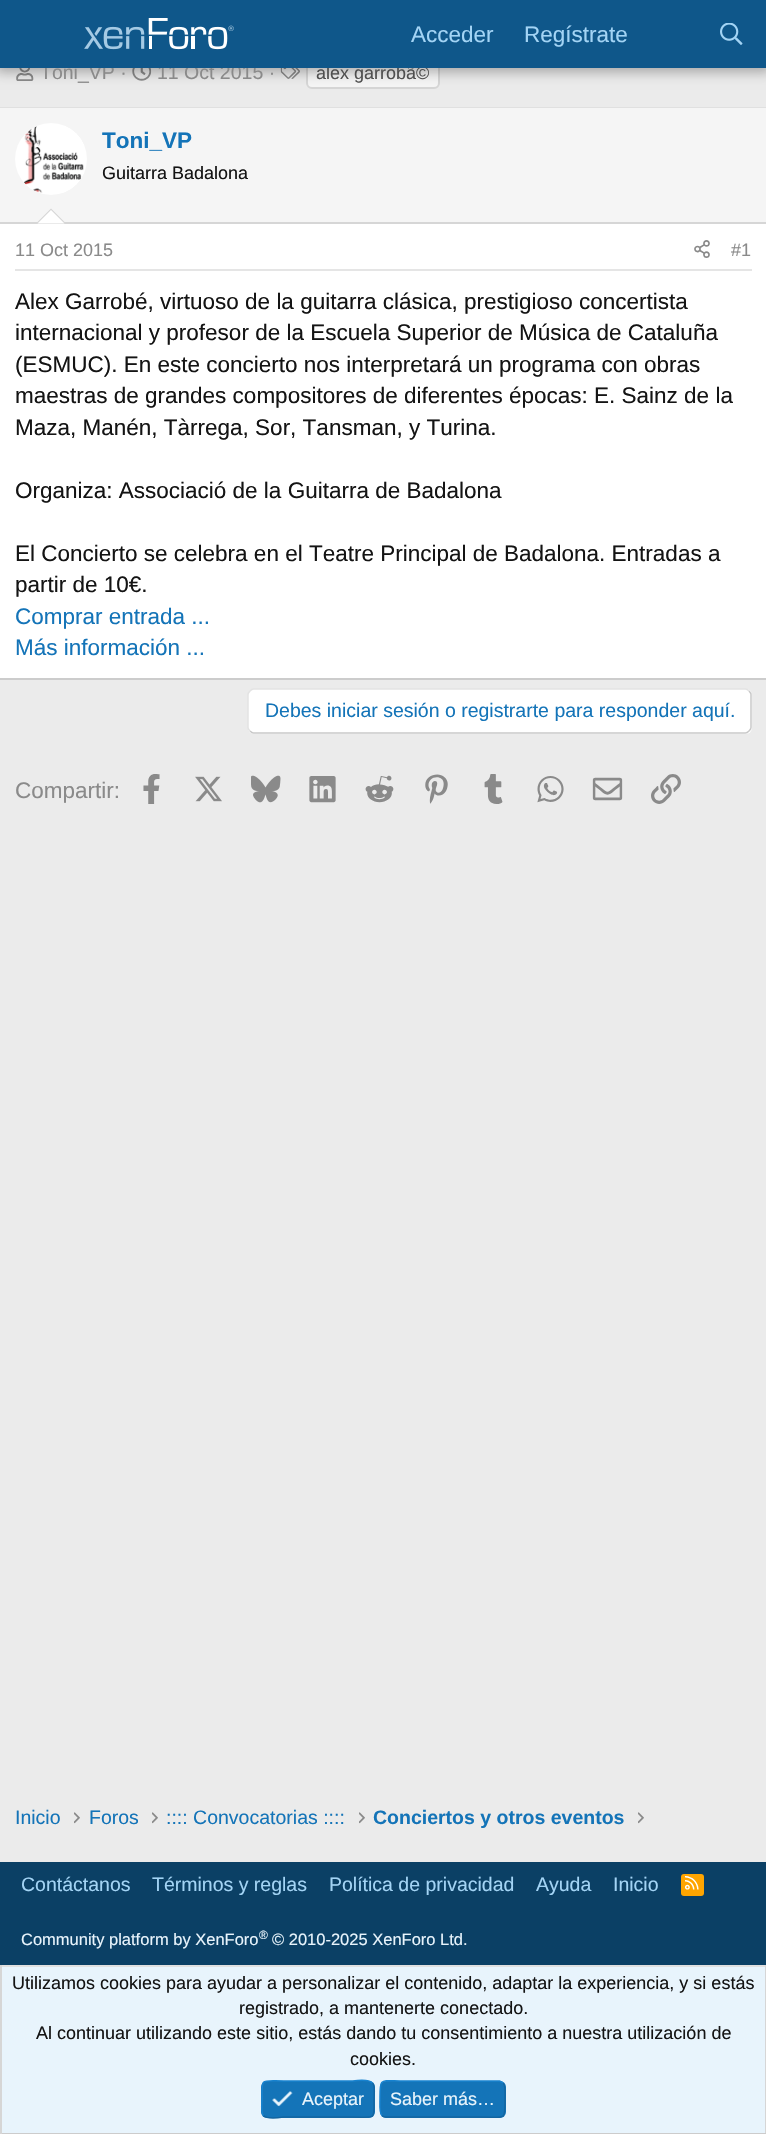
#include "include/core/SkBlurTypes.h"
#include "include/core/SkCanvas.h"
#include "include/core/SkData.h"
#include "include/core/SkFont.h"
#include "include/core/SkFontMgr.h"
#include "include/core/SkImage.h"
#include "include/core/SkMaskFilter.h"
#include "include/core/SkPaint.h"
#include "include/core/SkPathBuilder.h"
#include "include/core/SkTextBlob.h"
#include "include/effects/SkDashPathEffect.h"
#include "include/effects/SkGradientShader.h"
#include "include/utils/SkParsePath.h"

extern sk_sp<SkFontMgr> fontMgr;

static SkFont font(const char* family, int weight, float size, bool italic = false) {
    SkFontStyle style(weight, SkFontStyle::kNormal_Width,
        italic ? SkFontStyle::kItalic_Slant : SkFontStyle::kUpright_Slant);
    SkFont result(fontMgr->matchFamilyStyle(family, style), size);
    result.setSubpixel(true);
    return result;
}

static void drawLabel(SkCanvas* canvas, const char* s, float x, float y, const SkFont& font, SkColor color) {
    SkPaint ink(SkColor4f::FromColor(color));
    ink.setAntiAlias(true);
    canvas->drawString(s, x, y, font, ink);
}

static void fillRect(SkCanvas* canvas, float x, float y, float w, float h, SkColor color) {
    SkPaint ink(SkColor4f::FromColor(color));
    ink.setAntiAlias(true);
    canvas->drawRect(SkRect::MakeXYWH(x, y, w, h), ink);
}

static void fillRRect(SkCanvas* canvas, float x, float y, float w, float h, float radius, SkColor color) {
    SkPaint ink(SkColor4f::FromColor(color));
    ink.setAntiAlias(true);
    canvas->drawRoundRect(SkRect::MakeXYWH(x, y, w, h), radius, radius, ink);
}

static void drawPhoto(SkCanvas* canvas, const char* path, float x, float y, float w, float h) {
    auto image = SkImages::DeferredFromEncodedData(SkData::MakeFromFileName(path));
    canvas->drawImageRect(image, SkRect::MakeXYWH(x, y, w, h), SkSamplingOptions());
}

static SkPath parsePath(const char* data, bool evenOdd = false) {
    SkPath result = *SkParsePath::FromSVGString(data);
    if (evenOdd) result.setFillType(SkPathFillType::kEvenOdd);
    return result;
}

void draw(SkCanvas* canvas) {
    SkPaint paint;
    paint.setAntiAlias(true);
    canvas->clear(0xFFEBEBEB);
    drawPhoto(canvas, "assets/img3.png", 16, 68, 18, 13);
    drawPhoto(canvas, "assets/img4.png", 132, 68, 20, 13);
    drawPhoto(canvas, "assets/img5.png", 280, 68, 20, 11);
    paint.setColor(0xFFF5F5F5);
    canvas->drawRoundRect(SkRect::MakeXYWH(307, 61, 132, 27), 5, 5, paint);
    paint.setStroke(true);
    paint.setStrokeWidth(2);
    paint.setColor(0xFFD6D6D6);
    canvas->drawRoundRect(SkRect::MakeXYWH(307, 61, 132, 27), 5, 5, paint);
    paint.setStroke(false);
    paint.setColor(0x4D000000);
    paint.setMaskFilter(SkMaskFilter::MakeBlur(kNormal_SkBlurStyle, 6));
    canvas->drawRect(SkRect::MakeXYWH(-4, -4, 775, 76), paint);
    paint.setMaskFilter(nullptr);
    SkFont font1 = font("Liberation Sans", 400, 19.5f);
    drawLabel(canvas, "Toni_VP ·", 40, 79, font1, 0xFF8A8A8A);
    drawLabel(canvas, "11 Oct 2015 ·", 157, 79, font1, 0xFF8A8A8A);
    SkFont font2 = font("Liberation Sans", 400, 18);
    drawLabel(canvas, "alex garrobã©", 316, 79, font2, 0xFF4F4F4F);
    fillRect(canvas, 0, 0, 766, 68, 0xFF0F578A);
    drawPhoto(canvas, "assets/img1.png", 84, 18, 150, 32);
    SkFont font3 = font("Liberation Sans", 400, 22.5f);
    drawLabel(canvas, "Acceder", 411, 42, font3, 0xFFA3D4F5);
    drawLabel(canvas, "Regístrate", 524, 42, font3, 0xFFA3D4F5);
    drawPhoto(canvas, "assets/img2.png", 720, 23, 23, 22);
    fillRect(canvas, 0, 224, 766, 454, 0xFFFFFFFF);
    fillRect(canvas, 0, 107, 766, 1, 0xFFE0E0E0);
    fillRect(canvas, 0, 678, 766, 2, 0xFFCCCCCC);
    fillRect(canvas, 0, 108, 766, 114, 0xFFF5F5F5);
    fillRect(canvas, 0, 222, 766, 2, 0xFFD6D6D6);
    paint.setColor(0xFFFFFFFF);
    canvas->drawCircle(51, 159, 36, paint);
    drawPhoto(canvas, "assets/img6.png", 24, 126, 60, 67);
    SkFont font4 = font("Liberation Sans", 700, 22.5f);
    drawLabel(canvas, "Toni_VP", 102, 148, font4, 0xFF1474B8);
    drawLabel(canvas, "Guitarra Badalona", 102, 179, font2, 0xFF141414);
    paint.setColor(0xFFD6D6D6);
    canvas->drawPath(parsePath("M66 223.5H36L51 208.5Z"), paint);
    paint.setColor(0xFFFFFFFF);
    canvas->drawPath(parsePath("M64.5 223.5H37.5L51 210Z"), paint);
    fillRect(canvas, 15, 269, 737, 2, 0xFFE5E5E5);
    drawLabel(canvas, "11 Oct 2015", 15, 256, font2, 0xFF8A8A8A);
    drawPhoto(canvas, "assets/img7.png", 694, 240, 16, 18);
    drawLabel(canvas, "#1", 731, 256, font2, 0xFF8A8A8A);
    drawLabel(canvas, "Alex Garrobé, virtuoso de la guitarra clásica, prestigioso concertista", 15, 309, font3, 0xFF141414);
    drawLabel(canvas, "internacional y profesor de la Escuela Superior de Música de Cataluña", 15, 340, font3, 0xFF141414);
    drawLabel(canvas, "(ESMUC). En este concierto nos interpretará un programa con obras", 15, 372, font3, 0xFF141414);
    drawLabel(canvas, "maestras de grandes compositores de diferentes épocas: E. Sainz de la", 15, 403, font3, 0xFF141414);
    drawLabel(canvas, "Maza, Manén, Tàrrega, Sor, Tansman, y Turina.", 15, 435, font3, 0xFF141414);
    drawLabel(canvas, "Organiza: Associació de la Guitarra de Badalona", 15, 498, font3, 0xFF141414);
    drawLabel(canvas, "El Concierto se celebra en el Teatre Principal de Badalona. Entradas a", 15, 561, font3, 0xFF141414);
    drawLabel(canvas, "partir de 10€.", 15, 592, font3, 0xFF141414);
    drawLabel(canvas, "Comprar entrada ...", 15, 624, font3, 0xFF1474B8);
    drawLabel(canvas, "Más información ...", 15, 655, font3, 0xFF1474B8);
    fillRRect(canvas, 248, 689, 504, 45, 6, 0xFFFFFFFF);
    paint.setStroke(true);
    paint.setStrokeWidth(1.5f);
    paint.setColor(0xFFC9C9C9);
    canvas->drawPath(parsePath("M749 691C750 692 751 693 751 694.5V727.5C751 729 750 730 749 731C748 732 747 733 745.5 733H253.5C252 733 251 732 250 731"), paint);
    paint.setColor(0xFFE3E3E3);
    canvas->drawPath(parsePath("M250 731C249 730 248 729 248 727.5V694.5C248 693 249 692 250 691C251 690 252 689 253.5 689H745.5C747 689 748 690 749 691"), paint);
    drawLabel(canvas, "Debes iniciar sesión o registrarte para responder aquí.", 265, 717, font1, 0xFF1474B8);
    drawLabel(canvas, "Compartir:", 15, 798, font3, 0xFF8A8A8A);
    drawPhoto(canvas, "assets/img8.png", 143, 774, 17, 30);
    drawPhoto(canvas, "assets/img9.png", 195, 776, 27, 26);
    drawPhoto(canvas, "assets/img10.png", 251, 775, 30, 28);
    drawPhoto(canvas, "assets/img11.png", 309, 776, 27, 27);
    drawPhoto(canvas, "assets/img12.png", 365, 775, 29, 28);
    drawPhoto(canvas, "assets/img13.png", 425, 774, 23, 30);
    drawPhoto(canvas, "assets/img14.png", 484, 774, 19, 30);
    drawPhoto(canvas, "assets/img15.png", 537, 776, 27, 27);
    drawPhoto(canvas, "assets/img16.png", 592, 777, 31, 24);
    drawPhoto(canvas, "assets/img17.png", 651, 774, 30, 30);
    drawLabel(canvas, "Inicio", 15, 1824, font1, 0xFF1474B8);
    drawPhoto(canvas, "assets/img18.png", 74, 1812, 6, 12);
    drawLabel(canvas, "Foros", 89, 1824, font1, 0xFF1474B8);
    drawPhoto(canvas, "assets/img18.png", 152, 1812, 6, 12);
    drawLabel(canvas, ":::: Convocatorias ::::", 166, 1824, font1, 0xFF1474B8);
    drawPhoto(canvas, "assets/img18.png", 359, 1812, 6, 12);
    SkFont font5 = font("Liberation Sans", 700, 19.5f);
    drawLabel(canvas, "Conciertos y otros eventos", 373, 1824, font5, 0xFF1474B8);
    drawPhoto(canvas, "assets/img18.png", 638, 1812, 6, 12);
    fillRect(canvas, 0, 1862, 766, 103, 0xFF0B4065);
    drawLabel(canvas, "Contáctanos", 21, 1891, font1, 0xFFA3D4F5);
    drawLabel(canvas, "Términos y reglas", 152, 1891, font1, 0xFFA3D4F5);
    drawLabel(canvas, "Política de privacidad", 329, 1891, font1, 0xFFA3D4F5);
    drawLabel(canvas, "Ayuda", 536, 1891, font1, 0xFFA3D4F5);
    drawLabel(canvas, "Inicio", 613, 1891, font1, 0xFFA3D4F5);
    fillRRect(canvas, 681, 1874, 23, 22, 3, 0xFFFFA500);
    drawPhoto(canvas, "assets/img19.png", 685, 1876, 14, 14);
    SkFont font6 = font("Liberation Sans", 400, 16.5f);
    drawLabel(canvas, "Community platform by XenForo", 21, 1945, font6, 0xFFE8F4FC);
    SkFont font7 = font("Liberation Sans", 400, 12);
    drawLabel(canvas, "®", 259, 1939, font7, 0xFFE8F4FC);
    drawLabel(canvas, "© 2010-2025 XenForo Ltd.", 272, 1945, font6, 0xFFE8F4FC);
    fillRect(canvas, 2, 1967, 763, 166, 0xFFE8F4FC);
    fillRect(canvas, 0, 1965, 766, 2, 0xFFE0E0E0);
    fillRect(canvas, 765, 1965, 1, 169, 0xFFD6D6D6);
    fillRect(canvas, 0, 2133, 766, 1, 0xFFCCCCCC);
    fillRect(canvas, 0, 1965, 2, 169, 0xFFD6D6D6);
    drawLabel(canvas, "Utilizamos cookies para ayudar a personalizar el contenido, adaptar la experiencia, y si estás", 12, 1989, font2, 0xFF141414);
    drawLabel(canvas, "registrado, a mantenerte conectado.", 239, 2014, font2, 0xFF141414);
    drawLabel(canvas, "Al continuar utilizando este sitio, estás dando tu consentimiento a nuestra utilización de", 36, 2039, font2, 0xFF141414);
    drawLabel(canvas, "cookies.", 350, 2065, font2, 0xFF141414);
    fillRRect(canvas, 261, 2081, 114, 37, 6, 0xFF1474B8);
    paint.setColor(0xFF1265A1);
    canvas->drawPath(parsePath("M372.5 2083C375.5 2085.5 374 2095.5 374 2099C374 2121 376 2117 352 2117H284C283.5 2117 267.5 2120 263.5 2115.5"), paint);
    paint.setColor(0xFF1782CF);
    canvas->drawPath(parsePath("M263.5 2115.5C260.5 2113 262 2103 262 2099C262 2077.5 260 2081 284 2081H352C352.5 2081 368.5 2078.5 372.5 2083"), paint);
    drawPhoto(canvas, "assets/img20.png", 272, 2091, 21, 16);
    drawLabel(canvas, "Aceptar", 302, 2105, font2, 0xFFE8F4FC);
    fillRRect(canvas, 380, 2081, 126, 37, 6, 0xFF1474B8);
    paint.setColor(0xFF1265A1);
    canvas->drawPath(parsePath("M503 2083C506 2085.5 505 2095.5 505 2099C505 2121.5 506 2117 480.5 2117H385.5C384 2117 383 2116.5 382 2115.5"), paint);
    paint.setColor(0xFF1782CF);
    canvas->drawPath(parsePath("M382 2115.5C379 2113 380 2103 380 2099C380 2077 379 2081 404.5 2081H499.5C501 2081.5 502 2082 503 2083"), paint);
    drawLabel(canvas, "Saber más…", 390, 2105, font2, 0xFFE8F4FC);
}
